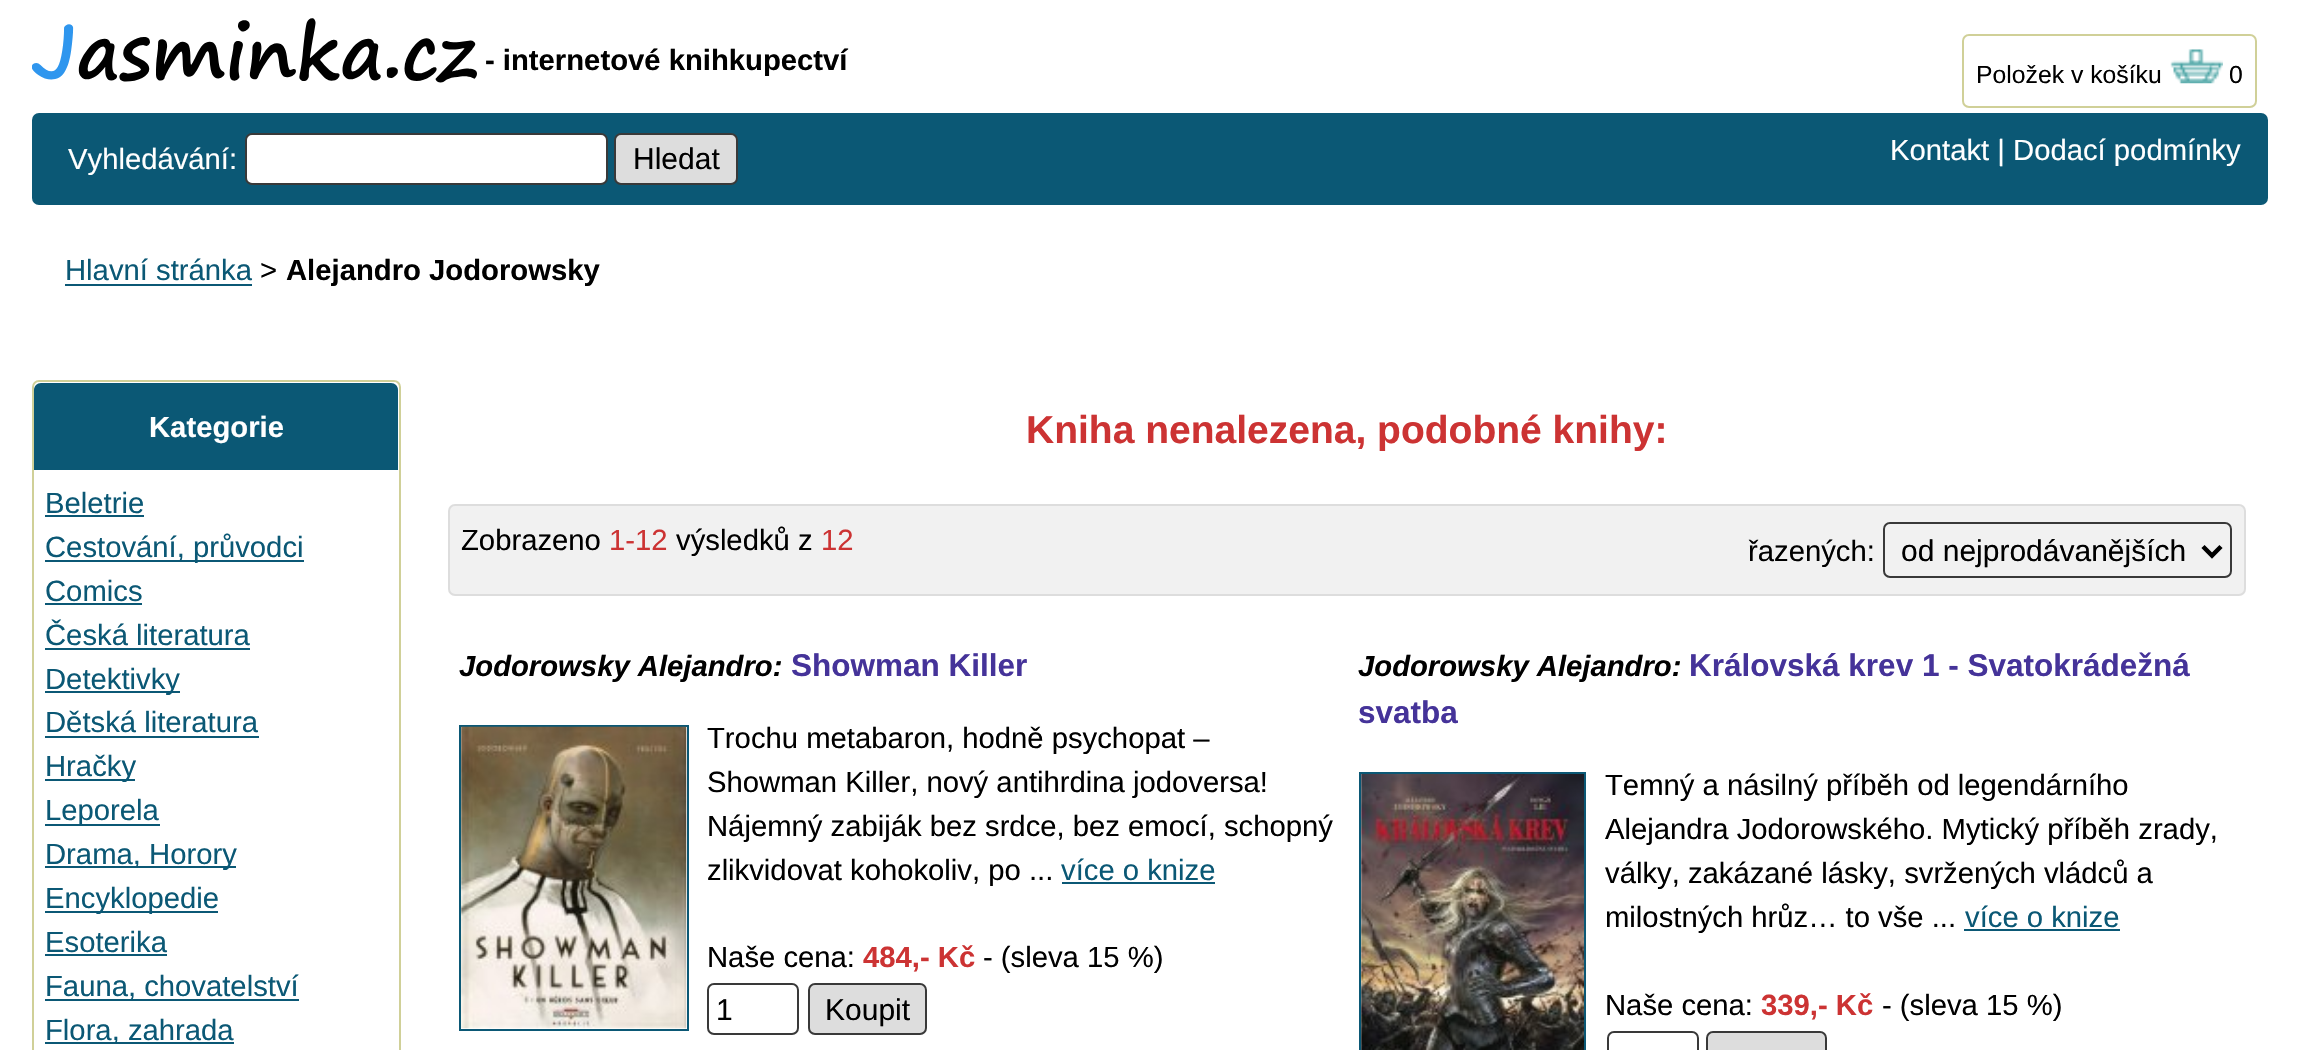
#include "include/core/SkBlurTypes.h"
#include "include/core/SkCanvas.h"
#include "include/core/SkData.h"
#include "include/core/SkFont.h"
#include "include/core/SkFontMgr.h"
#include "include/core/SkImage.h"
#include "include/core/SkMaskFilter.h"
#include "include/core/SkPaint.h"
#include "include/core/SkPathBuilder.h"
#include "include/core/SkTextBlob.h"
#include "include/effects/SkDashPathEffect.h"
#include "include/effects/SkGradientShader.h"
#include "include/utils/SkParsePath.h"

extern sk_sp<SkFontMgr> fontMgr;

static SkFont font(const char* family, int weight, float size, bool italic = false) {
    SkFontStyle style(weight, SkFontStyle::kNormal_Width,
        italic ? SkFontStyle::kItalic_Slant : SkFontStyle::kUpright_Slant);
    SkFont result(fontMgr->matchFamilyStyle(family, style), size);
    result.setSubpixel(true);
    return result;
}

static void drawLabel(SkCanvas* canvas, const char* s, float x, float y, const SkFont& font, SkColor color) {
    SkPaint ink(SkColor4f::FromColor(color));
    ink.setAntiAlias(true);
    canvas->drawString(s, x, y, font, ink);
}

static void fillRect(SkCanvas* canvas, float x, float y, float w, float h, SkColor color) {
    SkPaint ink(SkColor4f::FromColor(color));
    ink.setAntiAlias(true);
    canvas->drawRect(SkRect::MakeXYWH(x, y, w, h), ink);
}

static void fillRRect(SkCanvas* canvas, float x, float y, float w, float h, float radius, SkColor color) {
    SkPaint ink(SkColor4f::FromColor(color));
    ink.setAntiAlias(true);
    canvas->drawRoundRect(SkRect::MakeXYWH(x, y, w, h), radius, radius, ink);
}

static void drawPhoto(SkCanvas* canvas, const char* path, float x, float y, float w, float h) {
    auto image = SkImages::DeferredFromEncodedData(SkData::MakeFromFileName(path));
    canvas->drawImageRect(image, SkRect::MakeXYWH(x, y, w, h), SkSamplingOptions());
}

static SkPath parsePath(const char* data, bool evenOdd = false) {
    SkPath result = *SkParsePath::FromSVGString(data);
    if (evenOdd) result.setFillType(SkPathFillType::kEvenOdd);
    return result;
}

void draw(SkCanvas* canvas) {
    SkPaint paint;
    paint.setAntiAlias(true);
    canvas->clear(0xFFFFFFFF);
    drawPhoto(canvas, "assets/img1.png", 32, 18, 445, 65);
    SkFont font1 = font("Liberation Sans", 700, 29.25f);
    drawLabel(canvas, "- internetové knihkupectví", 485, 70, font1, 0xFF000000);
    paint.setStroke(true);
    paint.setStrokeWidth(2);
    paint.setColor(0xFFD0D098);
    canvas->drawRoundRect(SkRect::MakeXYWH(1963, 35, 293, 72), 6, 6, paint);
    SkFont font2 = font("Liberation Sans", 400, 24.75f);
    drawLabel(canvas, "Položek v košíku", 1976, 83, font2, 0xFF000000);
    drawPhoto(canvas, "assets/img2.png", 2170, 49, 53, 35);
    drawLabel(canvas, "0", 2229, 83, font2, 0xFF000000);
    fillRRect(canvas, 32, 113, 2236, 92, 7, 0xFF0B5875);
    SkFont font3 = font("Liberation Sans", 400, 29.25f);
    drawLabel(canvas, "Vyhledávání:", 68, 169, font3, 0xFFFFFFFF);
    paint.setStroke(false);
    paint.setColor(0xFFFFFFFF);
    canvas->drawRoundRect(SkRect::MakeXYWH(246, 134, 361, 50), 6, 6, paint);
    paint.setStroke(true);
    paint.setColor(0xFF393939);
    canvas->drawRoundRect(SkRect::MakeXYWH(246, 134, 361, 50), 6, 6, paint);
    paint.setStroke(false);
    paint.setColor(0xFFDDDDDD);
    canvas->drawRoundRect(SkRect::MakeXYWH(615, 134, 122, 50), 6, 6, paint);
    paint.setStroke(true);
    paint.setColor(0xFF393939);
    canvas->drawRoundRect(SkRect::MakeXYWH(615, 134, 122, 50), 6, 6, paint);
    SkFont font4 = font("Liberation Sans", 400, 30);
    drawLabel(canvas, "Hledat", 633, 169, font4, 0xFF000000);
    drawLabel(canvas, "Kontakt | Dodací podmínky", 1890, 160, font3, 0xFFFFFFFF);
    drawLabel(canvas, "Hlavní stránka", 65, 280, font3, 0xFF0B5875);
    fillRect(canvas, 65, 284, 187, 2, 0xFF0B5875);
    drawLabel(canvas, ">", 260, 280, font3, 0xFF000000);
    drawLabel(canvas, "Alejandro Jodorowsky", 286, 280, font1, 0xFF000000);
    paint.setColor(0xFFD0D098);
    canvas->drawRoundRect(SkRect::MakeXYWH(33, 381, 367, 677), 6, 6, paint);
    paint.setStroke(false);
    paint.setColor(0xFF0B5875);
    canvas->drawPath(parsePath("M41 383H391C395 383 398 386 398 390V470H34V390C34 386 37 383 41 383Z"), paint);
    drawLabel(canvas, "Kategorie", 149, 437, font1, 0xFFFFFFFF);
    drawLabel(canvas, "Beletrie", 45, 513, font3, 0xFF0B5875);
    fillRect(canvas, 45, 515, 99, 2, 0xFF0B5875);
    fillRect(canvas, 45, 560, 259, 2, 0xFF0B5875);
    drawLabel(canvas, "Cestování, průvodci", 45, 557, font3, 0xFF0B5875);
    drawLabel(canvas, "Comics", 45, 601, font3, 0xFF0B5875);
    fillRect(canvas, 45, 603, 97, 2, 0xFF0B5875);
    drawLabel(canvas, "Česká literatura", 45, 645, font3, 0xFF0B5875);
    fillRect(canvas, 45, 648, 205, 2, 0xFF0B5875);
    fillRect(canvas, 45, 691, 135, 2, 0xFF0B5875);
    drawLabel(canvas, "Detektivky", 45, 689, font3, 0xFF0B5875);
    drawLabel(canvas, "Dětská literatura", 45, 732, font3, 0xFF0B5875);
    fillRect(canvas, 45, 736, 214, 2, 0xFF0B5875);
    fillRect(canvas, 45, 779, 90, 2, 0xFF0B5875);
    drawLabel(canvas, "Hračky", 45, 776, font3, 0xFF0B5875);
    fillRect(canvas, 45, 824, 115, 2, 0xFF0B5875);
    drawLabel(canvas, "Leporela", 45, 820, font3, 0xFF0B5875);
    fillRect(canvas, 45, 866, 191, 2, 0xFF0B5875);
    drawLabel(canvas, "Drama, Horory", 45, 864, font3, 0xFF0B5875);
    fillRect(canvas, 45, 911, 173, 2, 0xFF0B5875);
    drawLabel(canvas, "Encyklopedie", 45, 908, font3, 0xFF0B5875);
    drawLabel(canvas, "Esoterika", 45, 952, font3, 0xFF0B5875);
    fillRect(canvas, 45, 954, 122, 2, 0xFF0B5875);
    fillRect(canvas, 45, 999, 254, 2, 0xFF0B5875);
    drawLabel(canvas, "Fauna, chovatelství", 45, 996, font3, 0xFF0B5875);
    fillRect(canvas, 45, 1042, 189, 2, 0xFF0B5875);
    drawLabel(canvas, "Flora, zahrada", 45, 1040, font3, 0xFF0B5875);
    SkFont font5 = font("Liberation Sans", 700, 39);
    drawLabel(canvas, "Kniha nenalezena, podobné knihy:", 1026, 443, font5, 0xFFCC3333);
    paint.setColor(0xFFF1F1F1);
    canvas->drawRoundRect(SkRect::MakeXYWH(449, 505, 1796, 90), 6, 6, paint);
    paint.setStroke(true);
    paint.setColor(0xFFDDDDDD);
    canvas->drawRoundRect(SkRect::MakeXYWH(449, 505, 1796, 90), 6, 6, paint);
    drawLabel(canvas, "Zobrazeno", 461, 550, font3, 0xFF000000);
    drawLabel(canvas, "1-12", 609, 550, font3, 0xFFCC3333);
    drawLabel(canvas, "výsledků z", 676, 550, font3, 0xFF000000);
    drawLabel(canvas, "12", 821, 550, font3, 0xFFCC3333);
    drawLabel(canvas, "řazených:", 1748, 561, font3, 0xFF000000);
    paint.setColor(0xFF393939);
    canvas->drawRoundRect(SkRect::MakeXYWH(1884, 523, 347, 54), 6, 6, paint);
    paint.setStrokeWidth(4.5f);
    paint.setColor(0xFF000000);
    canvas->drawPath(parsePath("M2203 546.5L2212 555.5L2221 546.5"), paint);
    drawLabel(canvas, "od nejprodávanějších", 1901, 561, font4, 0xFF000000);
    SkFont font6 = font("Liberation Sans", 700, 29.25f, true);
    drawLabel(canvas, "Jodorowsky Alejandro:", 459, 676, font6, 0xFF000000);
    SkFont font7 = font("Liberation Sans", 700, 31.5f);
    drawLabel(canvas, "Showman Killer", 791, 676, font7, 0xFF453399);
    paint.setStrokeWidth(2);
    paint.setColor(0xFF0B5875);
    canvas->drawRect(SkRect::MakeXYWH(460, 726, 228, 304), paint);
    drawPhoto(canvas, "assets/img3.png", 461, 726, 226, 303);
    drawLabel(canvas, "Trochu metabaron, hodně psychopat –", 707, 748, font3, 0xFF000000);
    drawLabel(canvas, "Showman Killer, nový antihrdina jodoversa!", 707, 792, font3, 0xFF000000);
    drawLabel(canvas, "Nájemný zabiják bez srdce, bez emocí, schopný", 707, 836, font3, 0xFF000000);
    drawLabel(canvas, "zlikvidovat kohokoliv, po ...", 707, 880, font3, 0xFF000000);
    drawLabel(canvas, "více o knize", 1061, 880, font3, 0xFF0B5875);
    fillRect(canvas, 1062, 882, 153, 2, 0xFF0B5875);
    drawLabel(canvas, "Naše cena:", 707, 967, font3, 0xFF000000);
    drawLabel(canvas, "484,- Kč", 863, 967, font1, 0xFFCC3333);
    drawLabel(canvas, "- (sleva 15 %)", 983, 967, font3, 0xFF000000);
    paint.setColor(0xFF393939);
    canvas->drawRoundRect(SkRect::MakeXYWH(708, 984, 90, 50), 6, 6, paint);
    drawLabel(canvas, "1", 716, 1020, font4, 0xFF000000);
    paint.setStroke(false);
    paint.setColor(0xFFDDDDDD);
    canvas->drawRoundRect(SkRect::MakeXYWH(809, 984, 117, 50), 6, 6, paint);
    paint.setStroke(true);
    paint.setColor(0xFF393939);
    canvas->drawRoundRect(SkRect::MakeXYWH(809, 984, 117, 50), 6, 6, paint);
    drawLabel(canvas, "Koupit", 825, 1020, font4, 0xFF000000);
    drawLabel(canvas, "Jodorowsky Alejandro:", 1358, 676, font6, 0xFF000000);
    drawLabel(canvas, "Královská krev 1 - Svatokrádežná", 1689, 676, font7, 0xFF453399);
    drawLabel(canvas, "svatba", 1358, 723, font7, 0xFF453399);
    paint.setColor(0xFF0B5875);
    canvas->drawRect(SkRect::MakeXYWH(1360, 773, 225, 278), paint);
    drawPhoto(canvas, "assets/img4.png", 1361, 774, 223, 276);
    drawLabel(canvas, "Temný a násilný příběh od legendárního", 1605, 795, font3, 0xFF000000);
    drawLabel(canvas, "Alejandra Jodorowského. Mytický příběh zrady,", 1605, 839, font3, 0xFF000000);
    drawLabel(canvas, "války, zakázané lásky, svržených vládců a", 1605, 883, font3, 0xFF000000);
    drawLabel(canvas, "milostných hrůz… to vše ...", 1605, 927, font3, 0xFF000000);
    drawLabel(canvas, "více o knize", 1965, 927, font3, 0xFF0B5875);
    fillRect(canvas, 1964, 929, 156, 2, 0xFF0B5875);
    drawLabel(canvas, "Naše cena:", 1605, 1015, font3, 0xFF000000);
    drawLabel(canvas, "339,- Kč", 1761, 1015, font1, 0xFFCC3333);
    drawLabel(canvas, "- (sleva 15 %)", 1882, 1015, font3, 0xFF000000);
    paint.setColor(0xFF393939);
    canvas->drawRoundRect(SkRect::MakeXYWH(1608, 1032, 90, 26), 6, 6, paint);
    paint.setStroke(false);
    paint.setColor(0xFFDDDDDD);
    canvas->drawRoundRect(SkRect::MakeXYWH(1707, 1032, 119, 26), 6, 6, paint);
    paint.setStroke(true);
    paint.setColor(0xFF393939);
    canvas->drawRoundRect(SkRect::MakeXYWH(1707, 1032, 119, 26), 6, 6, paint);
}
